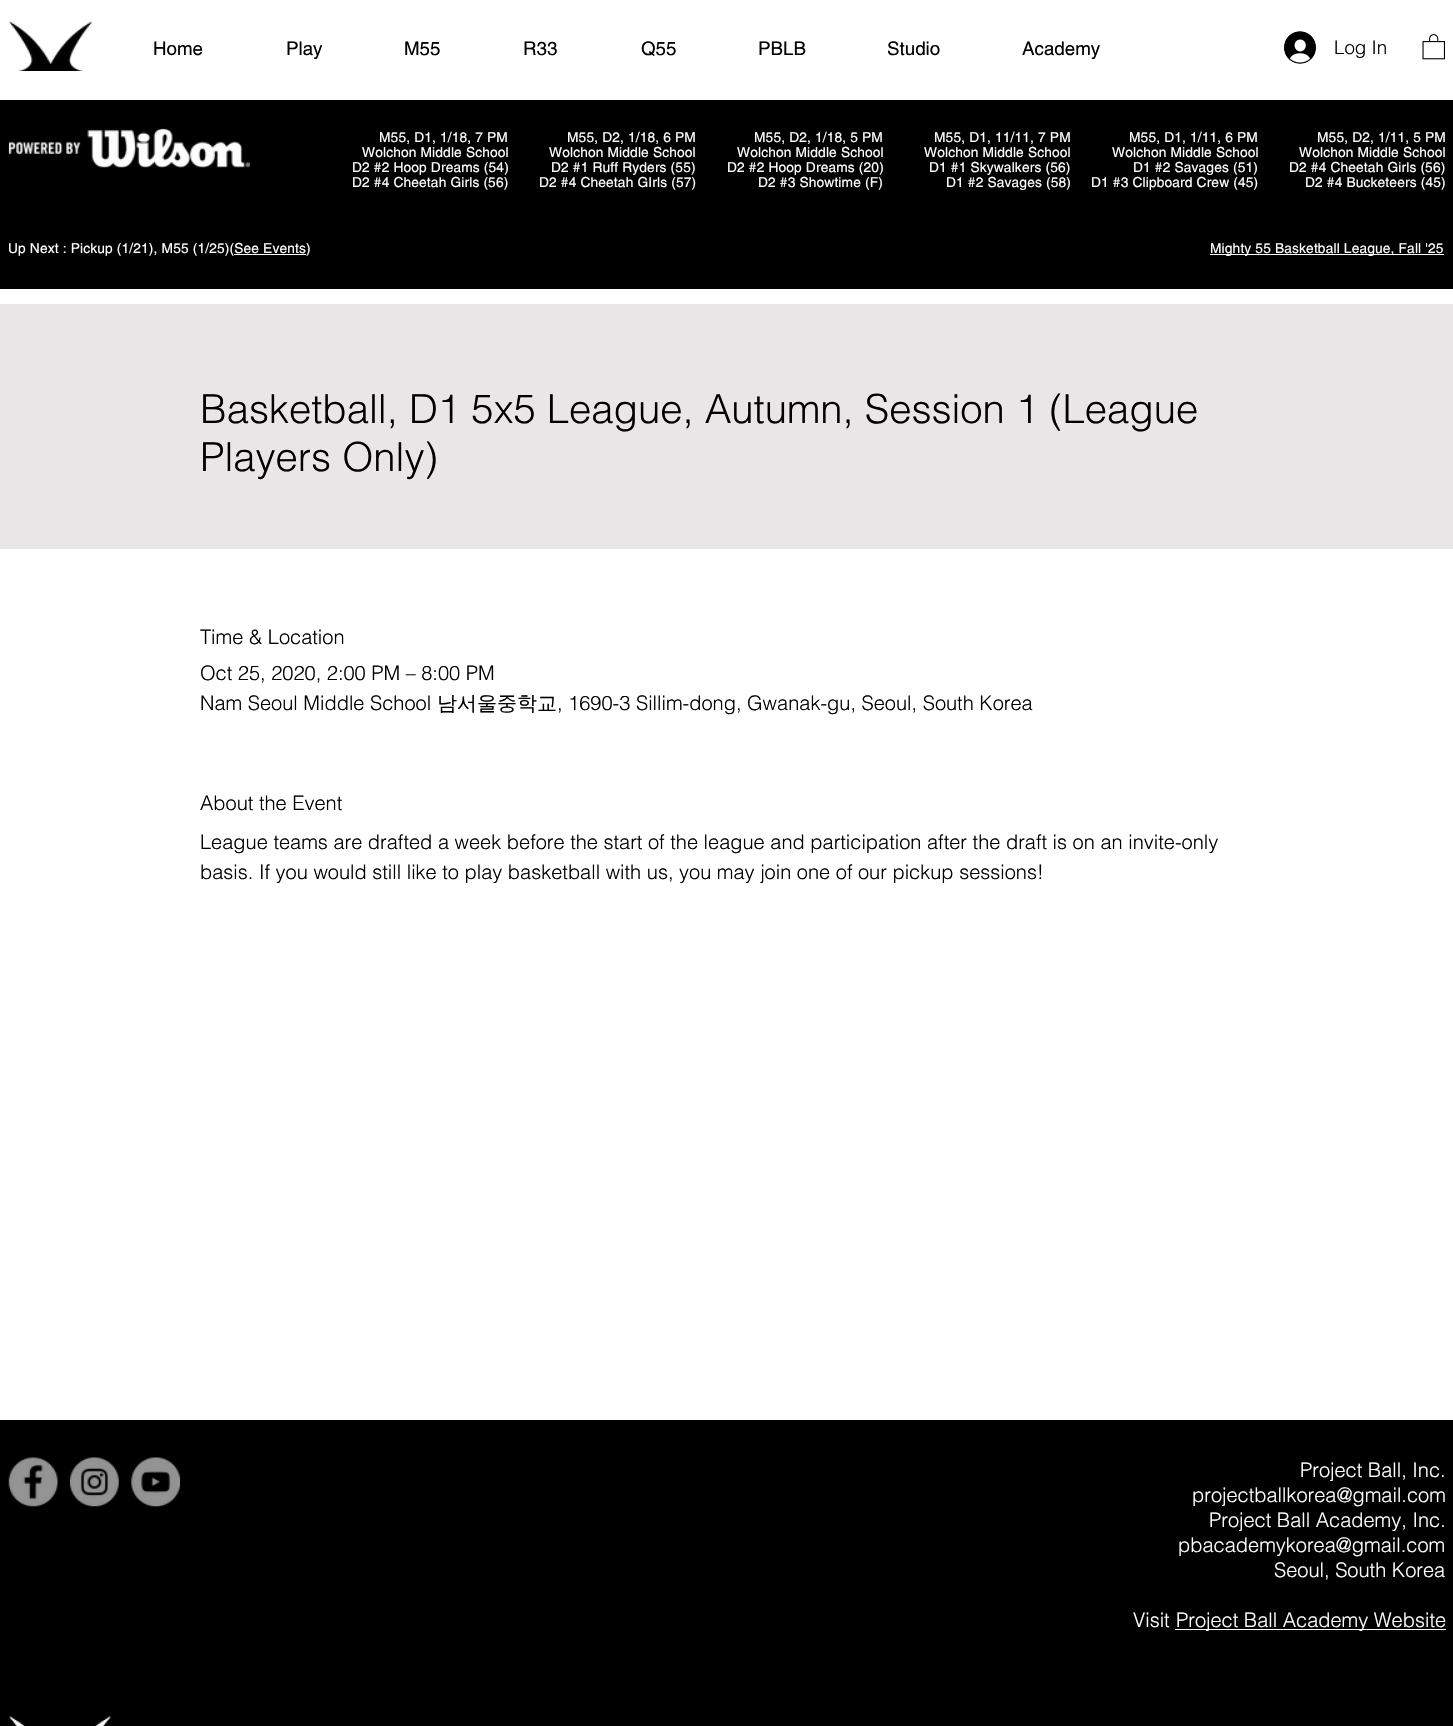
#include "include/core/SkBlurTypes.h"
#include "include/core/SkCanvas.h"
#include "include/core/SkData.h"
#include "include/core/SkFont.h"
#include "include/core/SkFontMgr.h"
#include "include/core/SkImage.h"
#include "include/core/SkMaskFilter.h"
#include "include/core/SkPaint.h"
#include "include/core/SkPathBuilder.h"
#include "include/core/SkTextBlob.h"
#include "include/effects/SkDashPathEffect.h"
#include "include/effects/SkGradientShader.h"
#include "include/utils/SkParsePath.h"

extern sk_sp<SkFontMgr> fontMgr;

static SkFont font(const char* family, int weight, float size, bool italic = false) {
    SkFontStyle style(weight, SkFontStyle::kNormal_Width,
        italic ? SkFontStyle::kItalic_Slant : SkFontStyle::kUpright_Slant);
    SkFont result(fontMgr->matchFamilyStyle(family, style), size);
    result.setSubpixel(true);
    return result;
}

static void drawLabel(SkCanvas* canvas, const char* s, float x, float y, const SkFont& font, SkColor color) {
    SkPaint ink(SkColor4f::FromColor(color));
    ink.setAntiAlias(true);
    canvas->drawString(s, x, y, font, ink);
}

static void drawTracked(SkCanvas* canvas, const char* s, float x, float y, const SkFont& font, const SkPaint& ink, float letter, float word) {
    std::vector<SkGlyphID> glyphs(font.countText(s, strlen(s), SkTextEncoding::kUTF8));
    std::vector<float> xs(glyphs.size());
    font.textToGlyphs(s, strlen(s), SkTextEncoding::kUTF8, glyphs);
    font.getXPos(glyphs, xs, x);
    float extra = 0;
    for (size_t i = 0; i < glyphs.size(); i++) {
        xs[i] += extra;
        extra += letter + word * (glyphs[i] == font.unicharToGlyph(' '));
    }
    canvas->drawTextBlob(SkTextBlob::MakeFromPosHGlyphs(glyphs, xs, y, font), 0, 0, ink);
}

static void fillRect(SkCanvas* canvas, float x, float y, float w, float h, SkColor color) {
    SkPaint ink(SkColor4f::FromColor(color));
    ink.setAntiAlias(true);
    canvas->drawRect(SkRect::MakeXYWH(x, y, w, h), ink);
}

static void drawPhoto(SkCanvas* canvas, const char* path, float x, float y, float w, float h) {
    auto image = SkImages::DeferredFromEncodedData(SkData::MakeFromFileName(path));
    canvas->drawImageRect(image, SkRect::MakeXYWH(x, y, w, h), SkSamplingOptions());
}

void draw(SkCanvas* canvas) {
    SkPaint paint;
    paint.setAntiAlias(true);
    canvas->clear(0xFFFFFFFF);
    drawPhoto(canvas, "assets/img1.png", 9, 21, 83, 50);
    SkFont font1 = font("helvetica", 400, 18.75f);
    drawLabel(canvas, "Home", 153, 55, font1, 0xFF000000);
    drawLabel(canvas, "Play", 286, 55, font1, 0xFF000000);
    drawLabel(canvas, "M55", 404, 55, font1, 0xFF000000);
    drawLabel(canvas, "R33", 523, 55, font1, 0xFF000000);
    drawLabel(canvas, "Q55", 641, 55, font1, 0xFF000000);
    drawLabel(canvas, "PBLB", 758, 55, font1, 0xFF000000);
    drawLabel(canvas, "Studio", 887, 55, font1, 0xFF000000);
    drawLabel(canvas, "Academy", 1022, 55, font1, 0xFF000000);
    drawPhoto(canvas, "assets/img2.png", 1284, 31, 32, 33);
    SkFont font2 = font("helvetica", 300, 18.75f);
    drawLabel(canvas, "Log In", 1334, 54, font2, 0xFF000000);
    drawPhoto(canvas, "assets/img3.png", 1422, 34, 23, 26);
    fillRect(canvas, 0, 100, 1453, 189, 0xFF000000);
    drawPhoto(canvas, "assets/img4.png", 8, 128, 242, 40);
    SkFont font3 = font("helvetica", 400, 13.75f);
    paint.setColor(0xFFFFFFFF);
    drawTracked(canvas, "M55, D1, 1/18, 7 PM", 379, 142, font3, paint, 0.15f, 0);
    drawTracked(canvas, "Wolchon Middle School", 362, 157, font3, paint, 0.15f, 0);
    drawTracked(canvas, "D2 #2 Hoop Dreams (54)", 352, 172, font3, paint, 0.15f, 0);
    drawTracked(canvas, "D2 #4 Cheetah Girls (56)", 352, 187, font3, paint, 0.15f, 0);
    drawTracked(canvas, "M55, D2, 1/18, 6 PM", 567, 142, font3, paint, 0.15f, 0);
    drawTracked(canvas, "Wolchon Middle School", 549, 157, font3, paint, 0.15f, 0);
    drawTracked(canvas, "D2 #1 Ruff Ryders (55)", 551, 172, font3, paint, 0.15f, 0);
    drawTracked(canvas, "D2 #4 Cheetah GIrls (57)", 539, 187, font3, paint, 0.15f, 0);
    drawTracked(canvas, "M55, D2, 1/18, 5 PM", 754, 142, font3, paint, 0.15f, 0);
    drawTracked(canvas, "Wolchon Middle School", 737, 157, font3, paint, 0.15f, 0);
    drawTracked(canvas, "D2 #2 Hoop Dreams (20)", 727, 172, font3, paint, 0.15f, 0);
    drawTracked(canvas, "D2 #3 Showtime (F)", 758, 187, font3, paint, 0.15f, 0);
    drawTracked(canvas, "M55, D1, 11/11, 7 PM", 934, 142, font3, paint, 0.15f, 0);
    drawTracked(canvas, "Wolchon Middle School", 924, 157, font3, paint, 0.15f, 0);
    drawTracked(canvas, "D1 #1 Skywalkers (56)", 929, 172, font3, paint, 0.15f, 0);
    drawTracked(canvas, "D1 #2 Savages (58)", 946, 187, font3, paint, 0.15f, 0);
    drawTracked(canvas, "M55, D1, 1/11, 6 PM", 1129, 142, font3, paint, 0.15f, 0);
    drawTracked(canvas, "Wolchon Middle School", 1112, 157, font3, paint, 0.15f, 0);
    drawTracked(canvas, "D1 #2 Savages (51)", 1133, 172, font3, paint, 0.15f, 0);
    drawTracked(canvas, "D1 #3 Clipboard Crew (45)", 1091, 187, font3, paint, 0.15f, 0);
    drawTracked(canvas, "M55, D2, 1/11, 5 PM", 1317, 142, font3, paint, 0.15f, 0);
    drawTracked(canvas, "Wolchon Middle School", 1299, 157, font3, paint, 0.15f, 0);
    drawTracked(canvas, "D2 #4 Cheetah Girls (56)", 1289, 172, font3, paint, 0.15f, 0);
    drawTracked(canvas, "D2 #4 Bucketeers (45)", 1305, 187, font3, paint, 0.15f, 0);
    drawTracked(canvas, "Up Next : Pickup (1/21), M55 (1/25)(See Events)", 8, 253, font3, paint, 0.15f, 0);
    fillRect(canvas, 234, 254, 72, 1, 0xFFFFFFFF);
    fillRect(canvas, 1210, 254, 234, 1, 0xFFFFFFFF);
    drawTracked(canvas, "Mighty 55 Basketball League, Fall '25", 1210, 253, font3, paint, 0.15f, 0);
    fillRect(canvas, 0, 304, 1453, 245, 0xFFE8E6E6);
    SkFont font4 = font("helvetica", 300, 40);
    drawLabel(canvas, "Basketball, D1 5x5 League, Autumn, Session 1 (League", 200, 423, font4, 0xFF000000);
    drawLabel(canvas, "Players Only)", 200, 471, font4, 0xFF000000);
    SkFont font5 = font("helvetica", 300, 20);
    drawLabel(canvas, "Time & Location", 200, 644, font5, 0xFF000000);
    drawLabel(canvas, "Oct 25, 2020, 2:00 PM – 8:00 PM", 200, 680, font5, 0xFF000000);
    drawLabel(canvas, "Nam Seoul Middle School", 200, 710, font5, 0xFF000000);
    SkFont font6 = font("WenQuanYi Zen Hei", 500, 20);
    drawLabel(canvas, "남서울중학교", 437, 710, font6, 0xFF000000);
    drawLabel(canvas, ", 1690-3 Sillim-dong, Gwanak-gu, Seoul, South Korea", 557, 710, font5, 0xFF000000);
    drawLabel(canvas, "About the Event", 200, 810, font5, 0xFF000000);
    drawLabel(canvas, "League teams are drafted a week before the start of the league and participation after the draft is on an invite-only", 200, 849, font5, 0xFF000000);
    drawLabel(canvas, "basis. If you would still like to play basketball with us, you may join one of our pickup sessions!", 200, 879, font5, 0xFF000000);
    fillRect(canvas, 0, 1420, 1453, 306, 0xFF000000);
    drawPhoto(canvas, "assets/img5.png", 8, 1457, 50, 50);
    drawPhoto(canvas, "assets/img6.png", 70, 1457, 49, 50);
    drawPhoto(canvas, "assets/img7.png", 131, 1457, 49, 50);
    drawLabel(canvas, "Project Ball, Inc.", 1300, 1477, font5, 0xFFFFFFFF);
    drawLabel(canvas, "projectballkorea@gmail.com", 1192, 1502, font5, 0xFFFFFFFF);
    drawLabel(canvas, "Project Ball Academy, Inc.", 1209, 1527, font5, 0xFFFFFFFF);
    drawLabel(canvas, "pbacademykorea@gmail.com", 1178, 1552, font5, 0xFFFFFFFF);
    drawLabel(canvas, "Seoul, South Korea", 1274, 1577, font5, 0xFFFFFFFF);
    drawLabel(canvas, "Visit", 1133, 1627, font5, 0xFFFFFFFF);
    fillRect(canvas, 1175, 1629, 271, 1, 0xFFFFFFFF);
    drawLabel(canvas, "Project Ball Academy Website", 1176, 1627, font5, 0xFFFFFFFF);
    drawPhoto(canvas, "assets/img8.png", 9, 1716, 102, 10);
}
